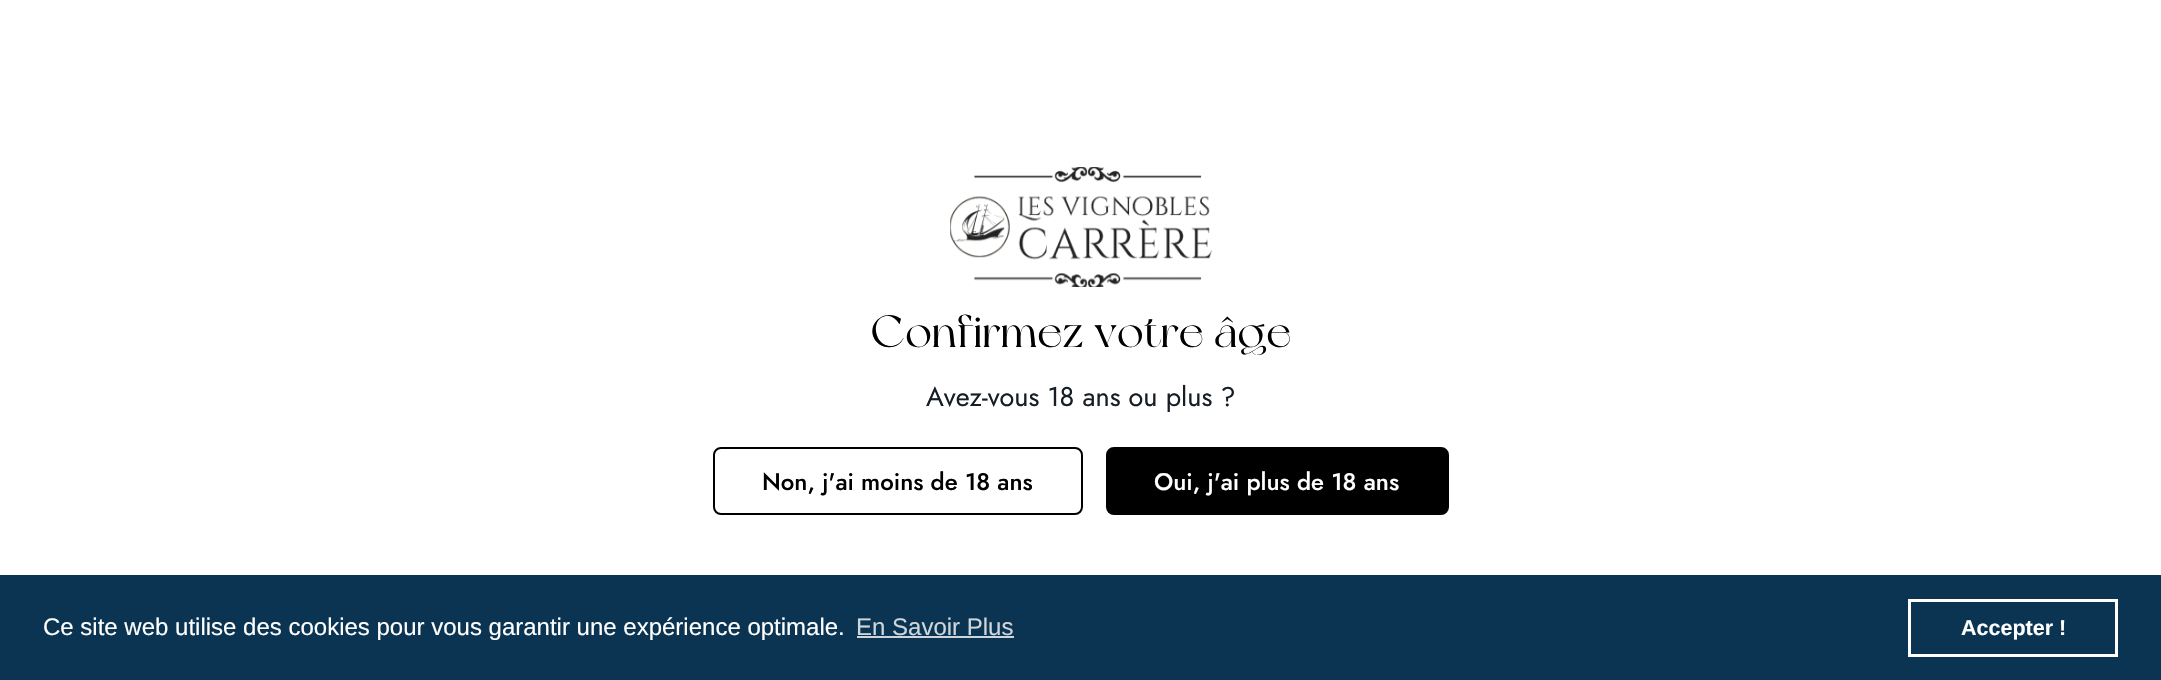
#include "include/core/SkBlurTypes.h"
#include "include/core/SkCanvas.h"
#include "include/core/SkData.h"
#include "include/core/SkFont.h"
#include "include/core/SkFontMgr.h"
#include "include/core/SkImage.h"
#include "include/core/SkMaskFilter.h"
#include "include/core/SkPaint.h"
#include "include/core/SkPathBuilder.h"
#include "include/core/SkTextBlob.h"
#include "include/effects/SkDashPathEffect.h"
#include "include/effects/SkGradientShader.h"
#include "include/utils/SkParsePath.h"

extern sk_sp<SkFontMgr> fontMgr;

static SkFont font(const char* family, int weight, float size, bool italic = false) {
    SkFontStyle style(weight, SkFontStyle::kNormal_Width,
        italic ? SkFontStyle::kItalic_Slant : SkFontStyle::kUpright_Slant);
    SkFont result(fontMgr->matchFamilyStyle(family, style), size);
    result.setSubpixel(true);
    return result;
}

static void drawLabel(SkCanvas* canvas, const char* s, float x, float y, const SkFont& font, SkColor color) {
    SkPaint ink(SkColor4f::FromColor(color));
    ink.setAntiAlias(true);
    canvas->drawString(s, x, y, font, ink);
}

static void fillRect(SkCanvas* canvas, float x, float y, float w, float h, SkColor color) {
    SkPaint ink(SkColor4f::FromColor(color));
    ink.setAntiAlias(true);
    canvas->drawRect(SkRect::MakeXYWH(x, y, w, h), ink);
}

static void drawPhoto(SkCanvas* canvas, const char* path, float x, float y, float w, float h) {
    auto image = SkImages::DeferredFromEncodedData(SkData::MakeFromFileName(path));
    canvas->drawImageRect(image, SkRect::MakeXYWH(x, y, w, h), SkSamplingOptions());
}

void draw(SkCanvas* canvas) {
    SkPaint paint;
    paint.setAntiAlias(true);
    canvas->clear(0xFFFFFFFF);
    drawPhoto(canvas, "assets/img1.png", 950, 167, 262, 120);
    SkFont font1 = font("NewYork", 400, 45);
    drawLabel(canvas, "Confirmez votre âge", 871, 347, font1, 0xFF000000);
    SkFont font2 = font("Jost", 400, 27);
    drawLabel(canvas, "Avez-vous 18 ans ou plus ?", 926, 406, font2, 0xFF161D25);
    paint.setStroke(true);
    paint.setStrokeWidth(2);
    paint.setColor(0xFF000000);
    canvas->drawRoundRect(SkRect::MakeXYWH(714, 448, 368, 66), 7, 7, paint);
    SkFont font3 = font("Jost", 500, 24);
    drawLabel(canvas, "Non, j'ai moins de 18 ans", 762, 490, font3, 0xFF000000);
    paint.setStroke(false);
    canvas->drawRoundRect(SkRect::MakeXYWH(1107, 448, 341, 66), 7, 7, paint);
    paint.setStroke(true);
    canvas->drawRoundRect(SkRect::MakeXYWH(1107, 448, 341, 66), 7, 7, paint);
    drawLabel(canvas, "Oui, j'ai plus de 18 ans", 1154, 490, font3, 0xFFFFFFFF);
    fillRect(canvas, 0, 575, 2161, 105, 0xFF0A3451);
    SkFont font4 = font("Liberation Sans", 400, 24);
    drawLabel(canvas, "Ce site web utilise des cookies pour vous garantir une expérience optimale.", 43, 635, font4, 0xFFFFFFFF);
    drawLabel(canvas, "En Savoir Plus", 856, 635, font4, 0xFFCED6DC);
    fillRect(canvas, 857, 636, 157, 2, 0xFFCED6DC);
    paint.setStrokeWidth(3);
    paint.setColor(0xFFFFFFFF);
    canvas->drawRect(SkRect::MakeXYWH(1909.5f, 600.5f, 207, 55), paint);
    SkFont font5 = font("Liberation Sans", 700, 21.5f);
    drawLabel(canvas, "Accepter !", 1961, 635, font5, 0xFFFFFFFF);
}
